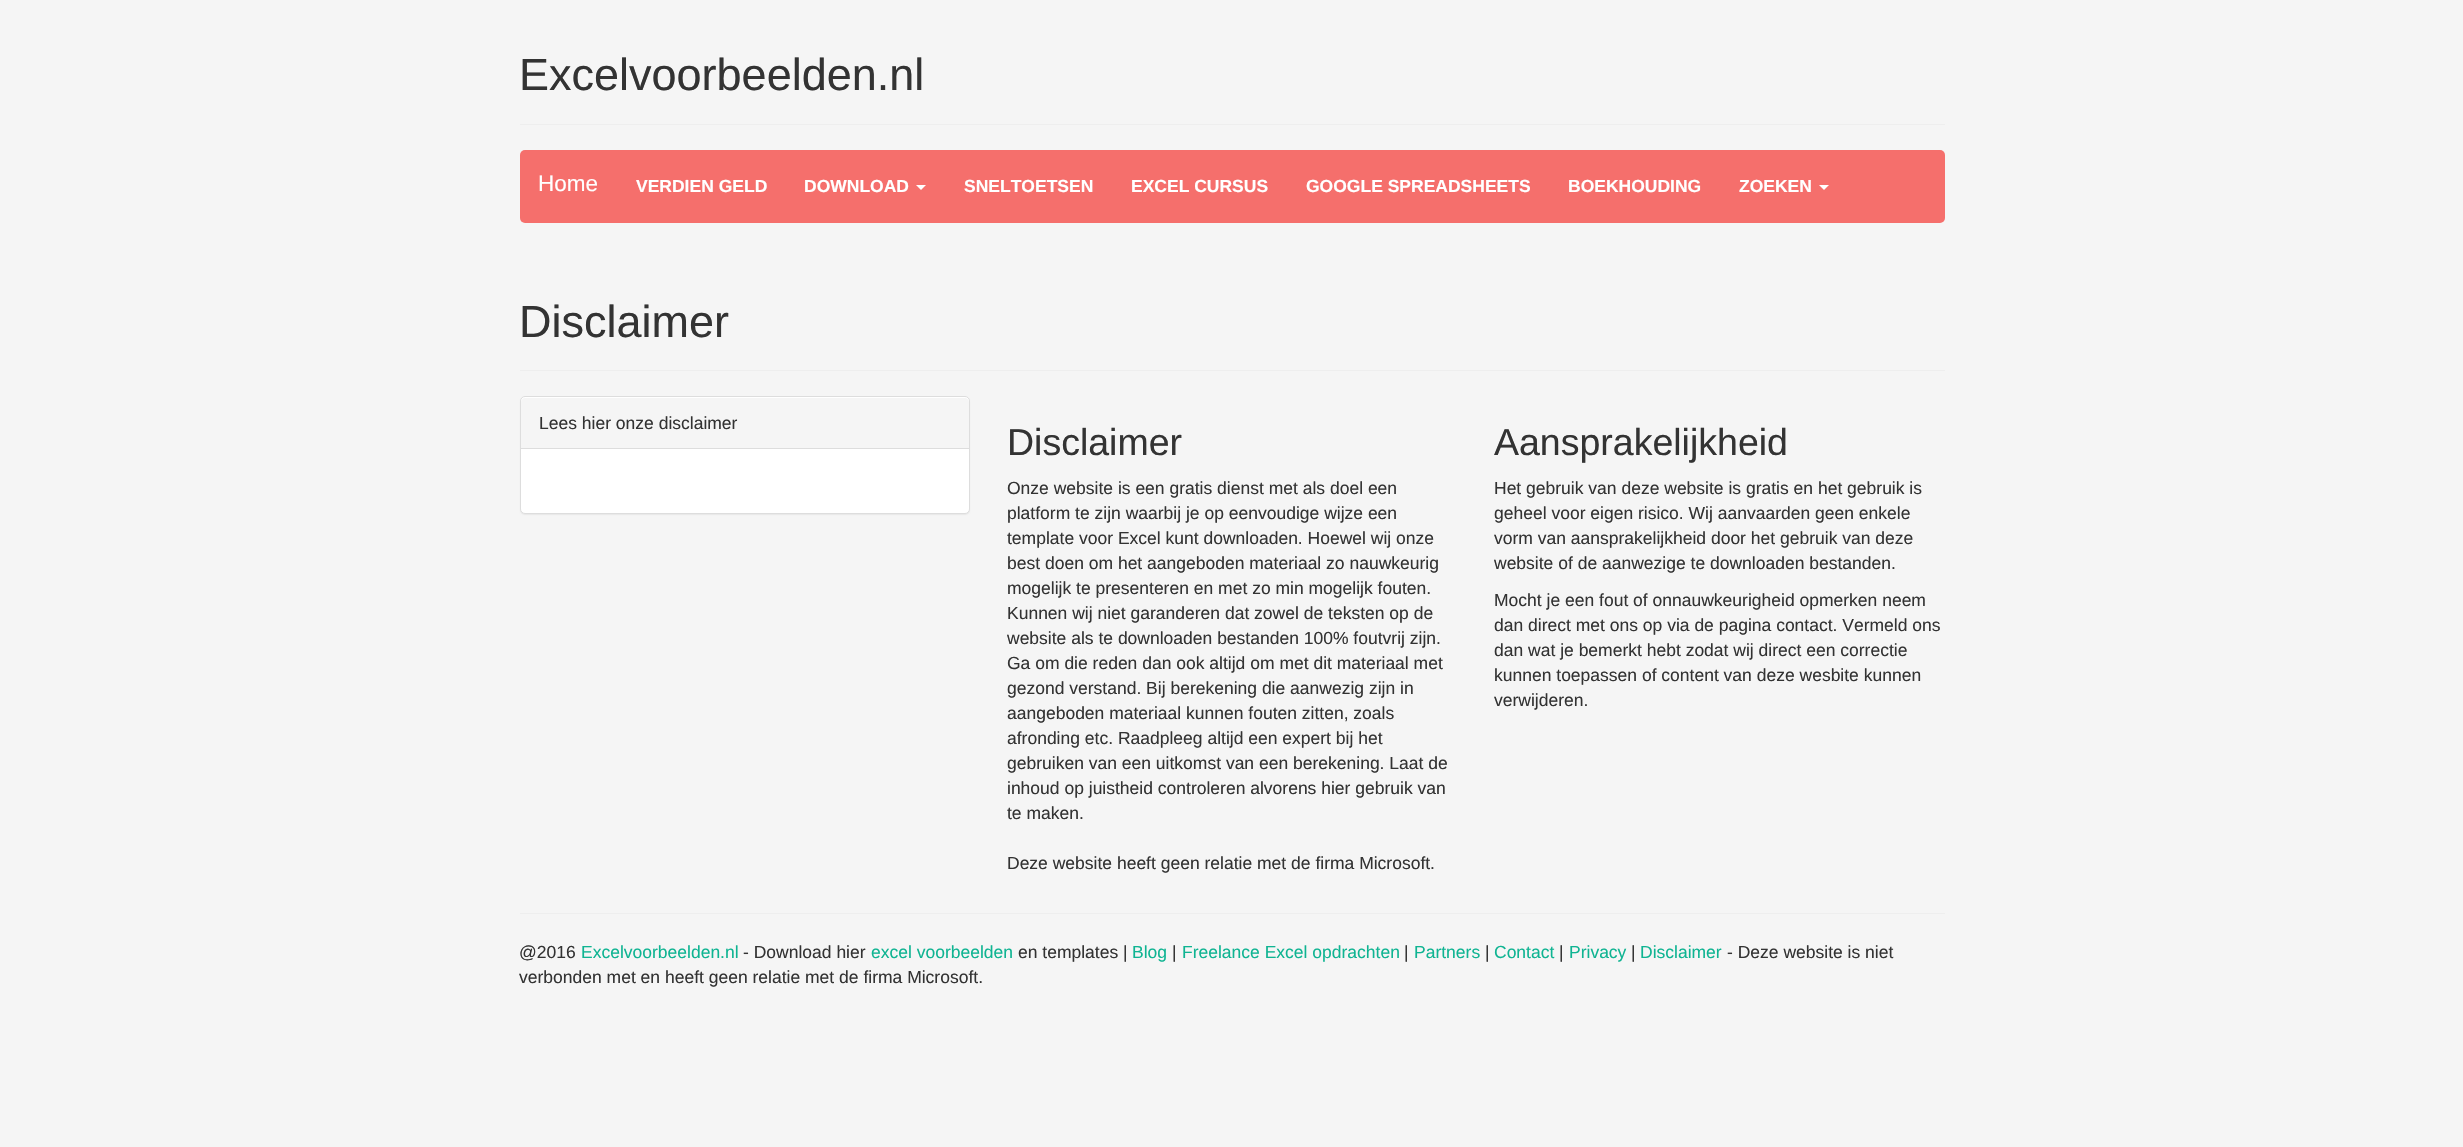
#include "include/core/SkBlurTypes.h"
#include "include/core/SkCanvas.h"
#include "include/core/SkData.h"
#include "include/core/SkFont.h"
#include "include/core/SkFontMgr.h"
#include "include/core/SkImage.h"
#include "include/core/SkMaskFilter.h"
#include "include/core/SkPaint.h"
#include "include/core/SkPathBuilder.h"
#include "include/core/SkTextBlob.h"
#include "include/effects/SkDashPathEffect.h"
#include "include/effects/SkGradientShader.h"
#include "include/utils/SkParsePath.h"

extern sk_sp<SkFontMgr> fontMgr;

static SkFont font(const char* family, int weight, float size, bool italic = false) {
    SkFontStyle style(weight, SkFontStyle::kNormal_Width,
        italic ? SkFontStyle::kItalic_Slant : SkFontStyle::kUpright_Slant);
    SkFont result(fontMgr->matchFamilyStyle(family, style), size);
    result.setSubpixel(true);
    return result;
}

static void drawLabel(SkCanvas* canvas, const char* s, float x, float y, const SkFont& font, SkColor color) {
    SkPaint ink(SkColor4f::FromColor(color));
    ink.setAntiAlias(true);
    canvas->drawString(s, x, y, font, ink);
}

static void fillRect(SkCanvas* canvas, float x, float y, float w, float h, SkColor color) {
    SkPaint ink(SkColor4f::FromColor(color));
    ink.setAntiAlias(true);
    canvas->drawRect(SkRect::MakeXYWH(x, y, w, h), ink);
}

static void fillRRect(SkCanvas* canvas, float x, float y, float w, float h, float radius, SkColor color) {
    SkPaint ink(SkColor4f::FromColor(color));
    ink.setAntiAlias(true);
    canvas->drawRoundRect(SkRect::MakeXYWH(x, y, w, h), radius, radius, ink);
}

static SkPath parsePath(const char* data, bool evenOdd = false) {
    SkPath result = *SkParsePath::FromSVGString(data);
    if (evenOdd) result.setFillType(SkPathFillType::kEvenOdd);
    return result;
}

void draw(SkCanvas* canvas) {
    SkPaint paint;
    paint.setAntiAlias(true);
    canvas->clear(0xFFF5F5F5);
    fillRect(canvas, 520, 124, 1425, 1, 0xFFEEEEEE);
    SkFont font1 = font("Liberation Sans", 400, 45);
    drawLabel(canvas, "Excelvoorbeelden.nl", 519, 90, font1, 0xFF333333);
    fillRRect(canvas, 520, 150, 1425, 73, 5, 0xFFF56F6C);
    SkFont font2 = font("Liberation Sans", 400, 22.5f);
    drawLabel(canvas, "Home", 538, 191, font2, 0xFFFFFFFF);
    SkFont font3 = font("Liberation Sans", 700, 17.5f);
    drawLabel(canvas, "VERDIEN GELD", 636, 192, font3, 0xFFFFFFFF);
    drawLabel(canvas, "DOWNLOAD", 804, 192, font3, 0xFFFFFFFF);
    paint.setColor(0xFFFFFFFF);
    canvas->drawPath(parsePath("M916 185H926L921 190Z"), paint);
    drawLabel(canvas, "SNELTOETSEN", 964, 192, font3, 0xFFFFFFFF);
    drawLabel(canvas, "EXCEL CURSUS", 1131, 192, font3, 0xFFFFFFFF);
    drawLabel(canvas, "GOOGLE SPREADSHEETS", 1306, 192, font3, 0xFFFFFFFF);
    drawLabel(canvas, "BOEKHOUDING", 1568, 192, font3, 0xFFFFFFFF);
    drawLabel(canvas, "ZOEKEN", 1739, 192, font3, 0xFFFFFFFF);
    canvas->drawPath(parsePath("M1819 185H1829L1824 190Z"), paint);
    fillRect(canvas, 520, 370, 1425, 1, 0xFFEEEEEE);
    drawLabel(canvas, "Disclaimer", 519, 337, font1, 0xFF333333);
    paint.setColor(0x0D000000);
    paint.setMaskFilter(SkMaskFilter::MakeBlur(kNormal_SkBlurStyle, 0.5f));
    canvas->drawRoundRect(SkRect::MakeXYWH(520, 398, 450, 117), 5, 5, paint);
    paint.setMaskFilter(nullptr);
    paint.setColor(0xFFFFFFFF);
    canvas->drawRoundRect(SkRect::MakeXYWH(520.5f, 396.5f, 449, 117), 4.5f, 4.5f, paint);
    paint.setStroke(true);
    paint.setStrokeWidth(1);
    paint.setColor(0xFFDDDDDD);
    canvas->drawRoundRect(SkRect::MakeXYWH(520.5f, 396.5f, 449, 117), 4.5f, 4.5f, paint);
    paint.setStroke(false);
    paint.setColor(0xFFF5F5F5);
    canvas->drawPath(parsePath("M525 398H965C967 398 969 400 969 402V449H521V402C521 400 523 398 525 398Z"), paint);
    fillRect(canvas, 521, 448, 448, 1, 0xFFDDDDDD);
    SkFont font4 = font("Liberation Sans", 400, 17.5f);
    drawLabel(canvas, "Lees hier onze disclaimer", 539, 429, font4, 0xFF333333);
    SkFont font5 = font("Liberation Sans", 400, 37.5f);
    drawLabel(canvas, "Disclaimer", 1007, 455, font5, 0xFF333333);
    drawLabel(canvas, "Onze website is een gratis dienst met als doel een", 1007, 494, font4, 0xFF333333);
    drawLabel(canvas, "platform te zijn waarbij je op eenvoudige wijze een", 1007, 519, font4, 0xFF333333);
    drawLabel(canvas, "template voor Excel kunt downloaden. Hoewel wij onze", 1007, 544, font4, 0xFF333333);
    drawLabel(canvas, "best doen om het aangeboden materiaal zo nauwkeurig", 1007, 569, font4, 0xFF333333);
    drawLabel(canvas, "mogelijk te presenteren en met zo min mogelijk fouten.", 1007, 594, font4, 0xFF333333);
    drawLabel(canvas, "Kunnen wij niet garanderen dat zowel de teksten op de", 1007, 619, font4, 0xFF333333);
    drawLabel(canvas, "website als te downloaden bestanden 100% foutvrij zijn.", 1007, 644, font4, 0xFF333333);
    drawLabel(canvas, "Ga om die reden dan ook altijd om met dit materiaal met", 1007, 669, font4, 0xFF333333);
    drawLabel(canvas, "gezond verstand. Bij berekening die aanwezig zijn in", 1007, 694, font4, 0xFF333333);
    drawLabel(canvas, "aangeboden materiaal kunnen fouten zitten, zoals", 1007, 719, font4, 0xFF333333);
    drawLabel(canvas, "afronding etc. Raadpleeg altijd een expert bij het", 1007, 744, font4, 0xFF333333);
    drawLabel(canvas, "gebruiken van een uitkomst van een berekening. Laat de", 1007, 769, font4, 0xFF333333);
    drawLabel(canvas, "inhoud op juistheid controleren alvorens hier gebruik van", 1007, 794, font4, 0xFF333333);
    drawLabel(canvas, "te maken.", 1007, 819, font4, 0xFF333333);
    drawLabel(canvas, "Deze website heeft geen relatie met de firma Microsoft.", 1007, 869, font4, 0xFF333333);
    drawLabel(canvas, "Aansprakelijkheid", 1494, 455, font5, 0xFF333333);
    drawLabel(canvas, "Het gebruik van deze website is gratis en het gebruik is", 1494, 494, font4, 0xFF333333);
    drawLabel(canvas, "geheel voor eigen risico. Wij aanvaarden geen enkele", 1494, 519, font4, 0xFF333333);
    drawLabel(canvas, "vorm van aansprakelijkheid door het gebruik van deze", 1494, 544, font4, 0xFF333333);
    drawLabel(canvas, "website of de aanwezige te downloaden bestanden.", 1494, 569, font4, 0xFF333333);
    drawLabel(canvas, "Mocht je een fout of onnauwkeurigheid opmerken neem", 1494, 606, font4, 0xFF333333);
    drawLabel(canvas, "dan direct met ons op via de pagina contact. Vermeld ons", 1494, 631, font4, 0xFF333333);
    drawLabel(canvas, "dan wat je bemerkt hebt zodat wij direct een correctie", 1494, 656, font4, 0xFF333333);
    drawLabel(canvas, "kunnen toepassen of content van deze wesbite kunnen", 1494, 681, font4, 0xFF333333);
    drawLabel(canvas, "verwijderen.", 1494, 706, font4, 0xFF333333);
    fillRect(canvas, 520, 913, 1425, 1, 0xFFEEEEEE);
    drawLabel(canvas, "@2016", 519, 958, font4, 0xFF333333);
    drawLabel(canvas, "Excelvoorbeelden.nl", 581, 958, font4, 0xFF0FB492);
    drawLabel(canvas, "- Download hier", 743, 958, font4, 0xFF333333);
    drawLabel(canvas, "excel voorbeelden", 871, 958, font4, 0xFF0FB492);
    drawLabel(canvas, "en templates |", 1018, 958, font4, 0xFF333333);
    drawLabel(canvas, "Blog", 1132, 958, font4, 0xFF0FB492);
    drawLabel(canvas, "|", 1172, 958, font4, 0xFF333333);
    drawLabel(canvas, "Freelance Excel opdrachten", 1182, 958, font4, 0xFF0FB492);
    drawLabel(canvas, "|", 1404, 958, font4, 0xFF333333);
    drawLabel(canvas, "Partners", 1414, 958, font4, 0xFF0FB492);
    drawLabel(canvas, "|", 1485, 958, font4, 0xFF333333);
    drawLabel(canvas, "Contact", 1494, 958, font4, 0xFF0FB492);
    drawLabel(canvas, "|", 1559, 958, font4, 0xFF333333);
    drawLabel(canvas, "Privacy", 1569, 958, font4, 0xFF0FB492);
    drawLabel(canvas, "|", 1631, 958, font4, 0xFF333333);
    drawLabel(canvas, "Disclaimer", 1640, 958, font4, 0xFF0FB492);
    drawLabel(canvas, "- Deze website is niet", 1727, 958, font4, 0xFF333333);
    drawLabel(canvas, "verbonden met en heeft geen relatie met de firma Microsoft.", 519, 983, font4, 0xFF333333);
}
